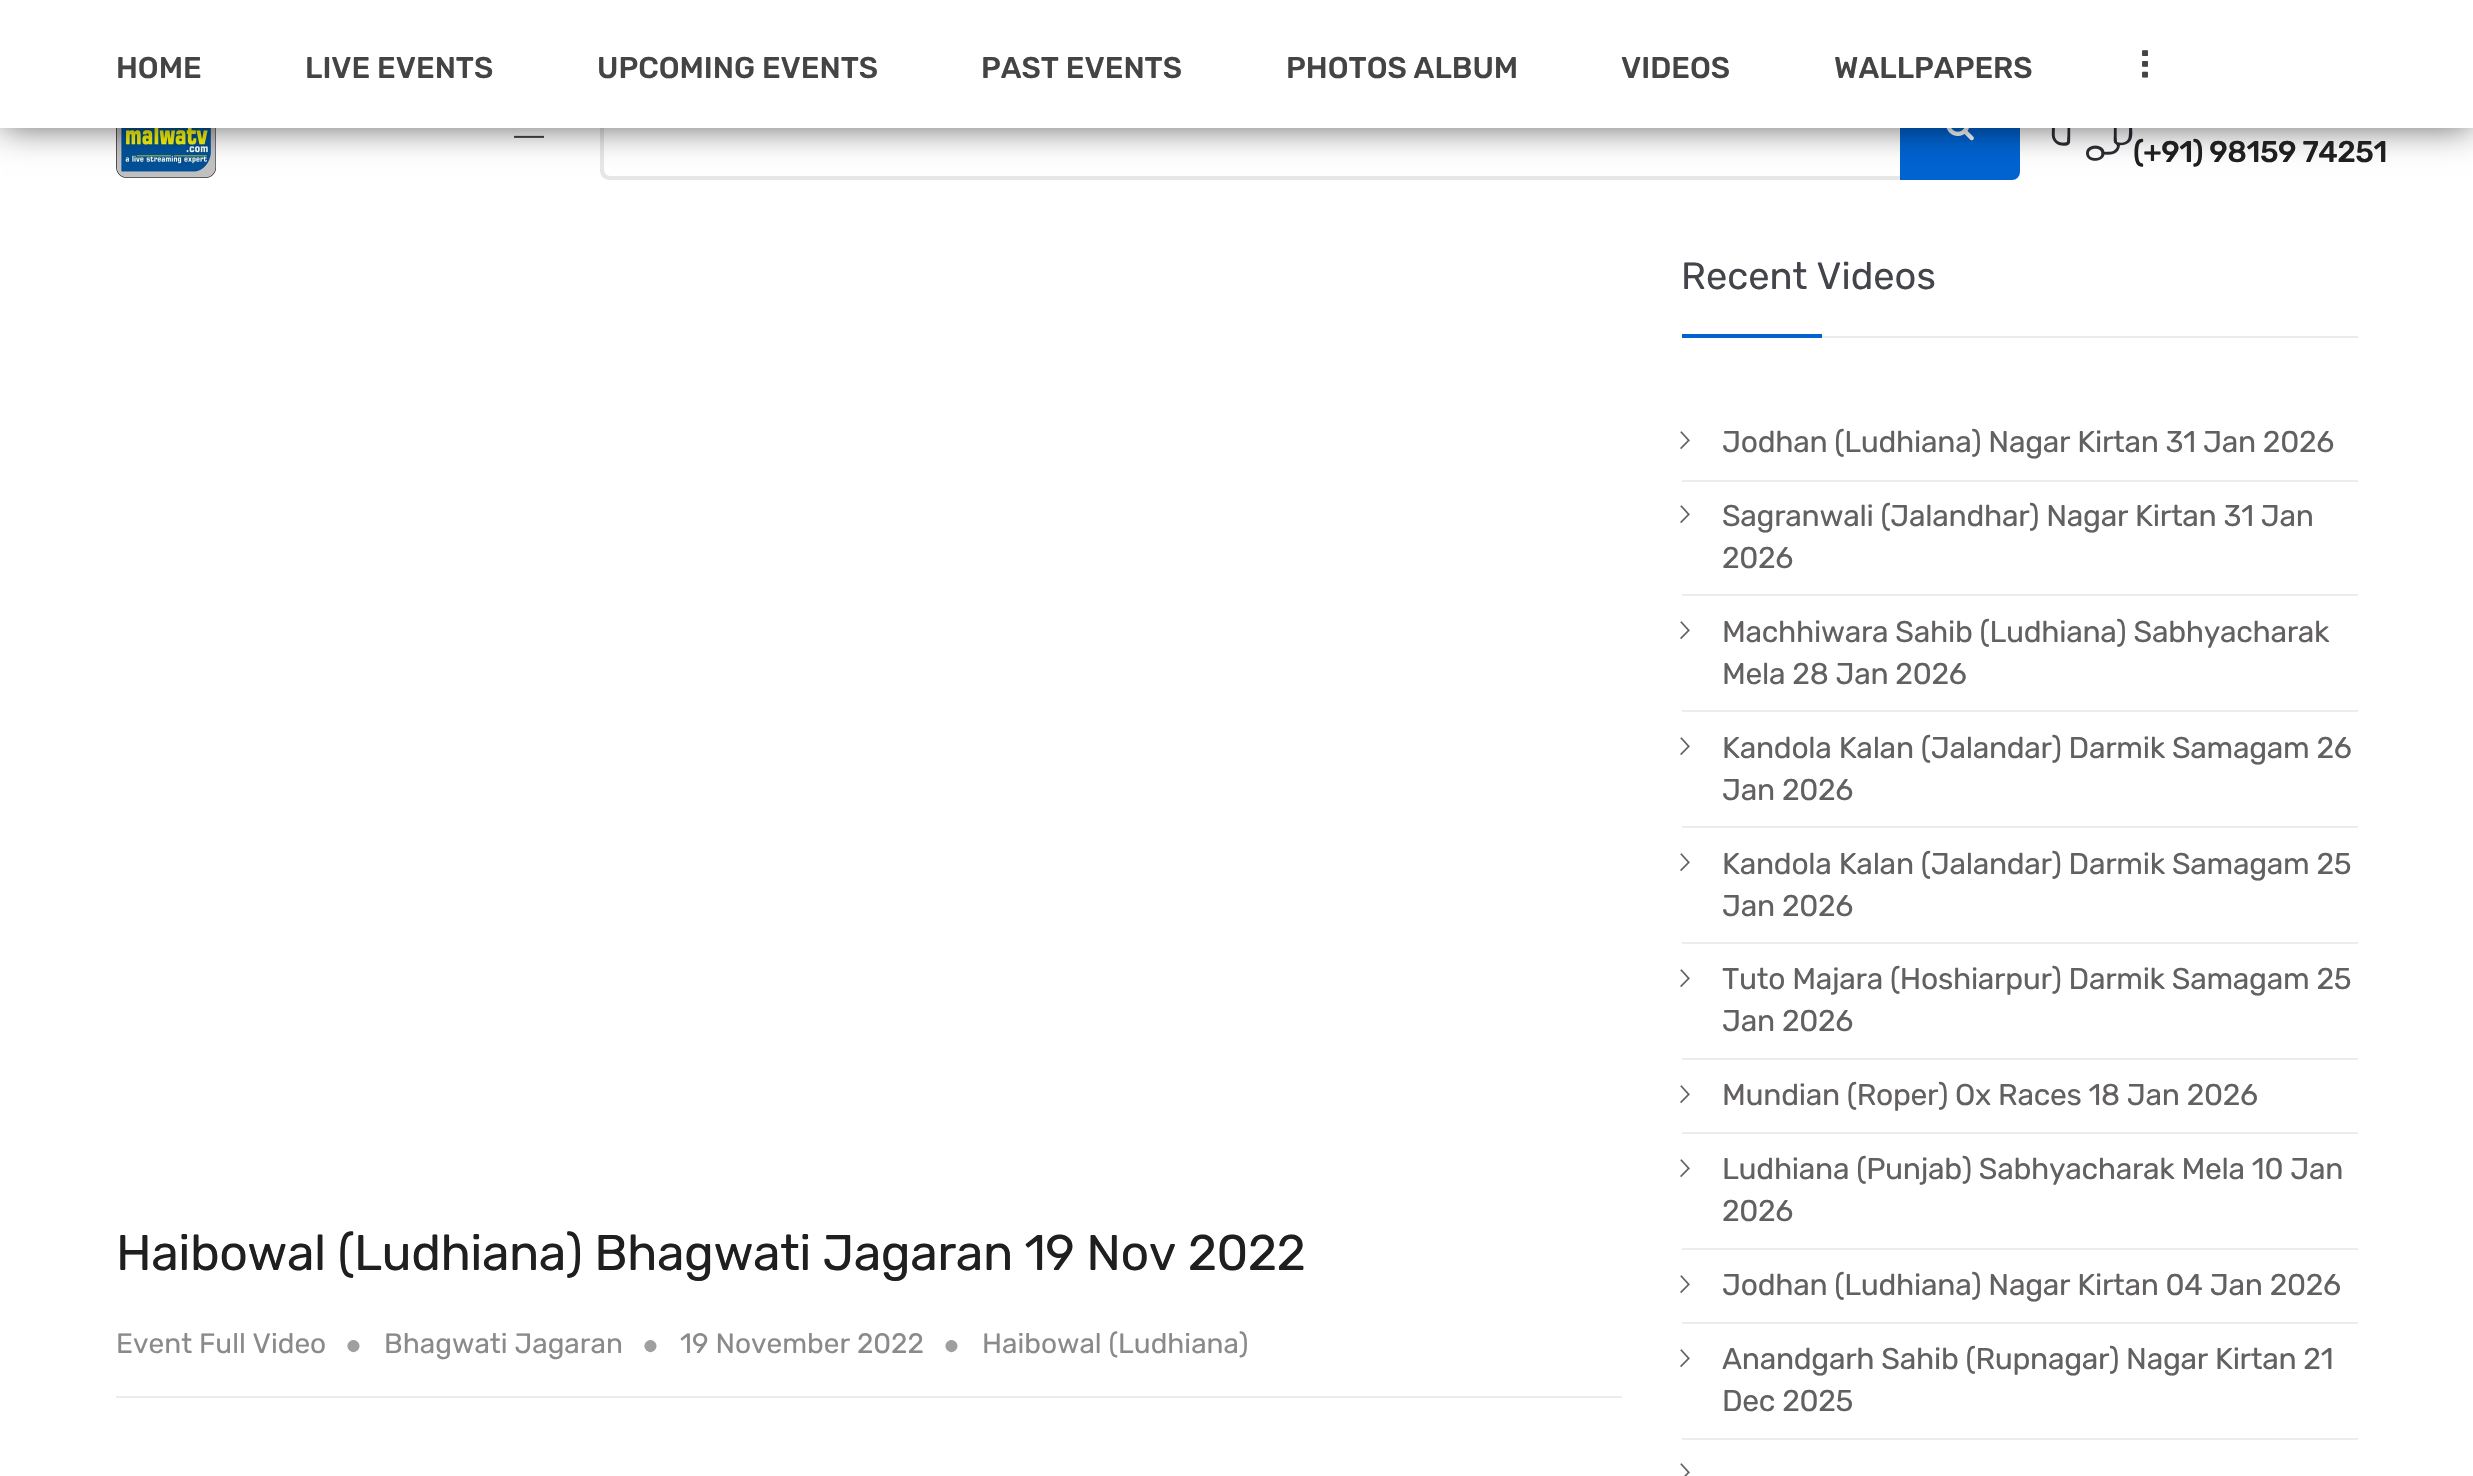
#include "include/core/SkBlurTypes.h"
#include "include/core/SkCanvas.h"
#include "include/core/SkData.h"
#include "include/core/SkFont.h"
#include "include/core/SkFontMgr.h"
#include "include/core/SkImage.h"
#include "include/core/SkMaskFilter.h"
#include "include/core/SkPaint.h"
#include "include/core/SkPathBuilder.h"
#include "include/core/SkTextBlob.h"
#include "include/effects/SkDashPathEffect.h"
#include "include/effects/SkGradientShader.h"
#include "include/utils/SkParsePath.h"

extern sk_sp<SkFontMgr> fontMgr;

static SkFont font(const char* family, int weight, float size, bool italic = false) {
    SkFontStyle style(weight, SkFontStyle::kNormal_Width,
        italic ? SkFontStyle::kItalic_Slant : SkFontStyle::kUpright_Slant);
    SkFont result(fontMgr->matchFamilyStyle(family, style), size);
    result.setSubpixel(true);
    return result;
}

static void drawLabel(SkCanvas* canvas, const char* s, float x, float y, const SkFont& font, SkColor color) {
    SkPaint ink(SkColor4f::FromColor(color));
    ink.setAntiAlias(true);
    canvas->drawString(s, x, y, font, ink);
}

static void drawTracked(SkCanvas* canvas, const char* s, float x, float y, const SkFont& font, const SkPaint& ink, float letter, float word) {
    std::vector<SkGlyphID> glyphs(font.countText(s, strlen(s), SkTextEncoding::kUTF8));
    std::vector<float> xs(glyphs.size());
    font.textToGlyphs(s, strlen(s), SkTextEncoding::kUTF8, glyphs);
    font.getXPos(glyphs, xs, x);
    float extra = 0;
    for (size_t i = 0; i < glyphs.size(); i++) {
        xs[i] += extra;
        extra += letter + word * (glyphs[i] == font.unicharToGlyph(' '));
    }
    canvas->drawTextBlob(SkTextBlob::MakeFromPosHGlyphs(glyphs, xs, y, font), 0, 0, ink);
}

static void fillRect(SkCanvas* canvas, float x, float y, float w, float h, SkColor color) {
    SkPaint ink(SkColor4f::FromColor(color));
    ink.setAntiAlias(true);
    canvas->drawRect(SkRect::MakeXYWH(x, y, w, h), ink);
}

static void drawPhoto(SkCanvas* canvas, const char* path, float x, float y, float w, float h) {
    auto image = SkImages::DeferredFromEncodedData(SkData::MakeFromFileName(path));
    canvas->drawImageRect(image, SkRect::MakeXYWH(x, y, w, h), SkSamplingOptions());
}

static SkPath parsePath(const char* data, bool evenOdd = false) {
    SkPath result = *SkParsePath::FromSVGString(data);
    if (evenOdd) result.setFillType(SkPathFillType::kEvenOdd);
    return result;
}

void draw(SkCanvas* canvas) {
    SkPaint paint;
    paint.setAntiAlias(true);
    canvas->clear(0xFFFFFFFF);
    drawPhoto(canvas, "assets/img1.png", 116, 128, 100, 50);
    drawPhoto(canvas, "assets/img2.png", 514, 135, 30, 3);
    paint.setColor(0xFFE7E7E7);
    canvas->drawPath(parsePath("M610 76H1902V180H610C604 180 600 176 600 170V86C600 80 604 76 610 76ZM610 80H1902V176H610C607 176 604 173 604 170V86C604 83 607 80 610 80Z", true), paint);
    paint.setColor(0xFF0063D1);
    canvas->drawPath(parsePath("M1901 77H2012C2016 77 2019 80 2019 84V172C2019 176 2016 179 2012 179H1901Z"), paint);
    paint.setStroke(true);
    paint.setStrokeWidth(2);
    canvas->drawPath(parsePath("M1901 77H2012C2016 77 2019 80 2019 84V172C2019 176 2016 179 2012 179H1901Z"), paint);
    drawPhoto(canvas, "assets/img3.png", 1946, 128, 28, 13);
    drawPhoto(canvas, "assets/img4.png", 2051, 128, 82, 33);
    paint.setStroke(false);
    paint.setColor(0xA8000000);
    paint.setMaskFilter(SkMaskFilter::MakeBlur(kNormal_SkBlurStyle, 17));
    canvas->drawRect(SkRect::MakeXYWH(2, 2, 2470, 124), paint);
    paint.setMaskFilter(nullptr);
    fillRect(canvas, 0, 0, 2473, 128, 0xFFFFFFFF);
    SkFont font1 = font("Rubik", 500, 30);
    drawLabel(canvas, "HOME", 116, 78, font1, 0xFF444444);
    drawLabel(canvas, "LIVE EVENTS", 305, 78, font1, 0xFF444444);
    drawLabel(canvas, "UPCOMING EVENTS", 597, 78, font1, 0xFF444444);
    drawLabel(canvas, "PAST EVENTS", 981, 78, font1, 0xFF444444);
    drawLabel(canvas, "PHOTOS ALBUM", 1286, 78, font1, 0xFF444444);
    drawLabel(canvas, "VIDEOS", 1621, 78, font1, 0xFF444444);
    drawLabel(canvas, "WALLPAPERS", 1834, 78, font1, 0xFF444444);
    SkFont font2 = font("Rubik", 500, 40);
    canvas->save();
    canvas->rotate(-90, 2148, 80);
    drawLabel(canvas, "...", 2148, 80, font2, 0xFF444444);
    canvas->restore();
    paint.setColor(0xFF1F1F1F);
    drawTracked(canvas, "(+91) 98159 74251", 2133, 162, font1, paint, -0.5f, 0);
    fillRect(canvas, 116, 1396, 1506, 2, 0xFFECECEC);
    SkFont font3 = font("Rubik", 400, 50);
    drawTracked(canvas, "Haibowal (Ludhiana) Bhagwati Jagaran 19 Nov 2022", 116, 1270, font3, paint, -0.5f, 0);
    SkFont font4 = font("Rubik", 400, 28);
    drawLabel(canvas, "Event Full Video", 116, 1353, font4, 0xFF8A8A8A);
    SkFont font5 = font("Liberation Sans", 400, 28);
    drawLabel(canvas, "●", 345, 1354, font5, 0xFF9F9F9F);
    drawLabel(canvas, "Bhagwati Jagaran", 384, 1353, font4, 0xFF8A8A8A);
    drawLabel(canvas, "●", 642, 1354, font5, 0xFF9F9F9F);
    drawLabel(canvas, "19 November 2022", 680, 1353, font4, 0xFF8A8A8A);
    drawLabel(canvas, "●", 943, 1354, font5, 0xFF9F9F9F);
    drawLabel(canvas, "Haibowal (Ludhiana)", 982, 1353, font4, 0xFF8A8A8A);
    fillRect(canvas, 1822, 336, 536, 2, 0xFFEBEBEB);
    SkFont font6 = font("Rubik", 400, 38);
    drawLabel(canvas, "Recent Videos", 1681, 289, font6, 0xFF43454B);
    fillRect(canvas, 1682, 334, 140, 4, 0xFF0063D1);
    fillRect(canvas, 1682, 480, 676, 2, 0xFFECECEC);
    drawPhoto(canvas, "assets/img5.png", 1680, 431, 10, 18);
    SkFont font7 = font("Rubik", 400, 30);
    paint.setColor(0xFF626060);
    drawTracked(canvas, "Jodhan (Ludhiana) Nagar Kirtan 31 Jan 2026", 1722, 452, font7, paint, -0.3f, 0);
    fillRect(canvas, 1682, 594, 676, 2, 0xFFECECEC);
    drawPhoto(canvas, "assets/img5.png", 1680, 505, 10, 18);
    drawTracked(canvas, "Sagranwali (Jalandhar) Nagar Kirtan 31 Jan", 1722, 526, font7, paint, -0.3f, 0);
    drawTracked(canvas, "2026", 1722, 568, font7, paint, -0.3f, 0);
    fillRect(canvas, 1682, 710, 676, 2, 0xFFECECEC);
    drawPhoto(canvas, "assets/img5.png", 1680, 621, 10, 18);
    drawTracked(canvas, "Machhiwara Sahib (Ludhiana) Sabhyacharak", 1722, 642, font7, paint, -0.3f, 0);
    drawTracked(canvas, "Mela 28 Jan 2026", 1722, 684, font7, paint, -0.3f, 0);
    fillRect(canvas, 1682, 826, 676, 2, 0xFFECECEC);
    drawPhoto(canvas, "assets/img5.png", 1680, 737, 10, 18);
    drawTracked(canvas, "Kandola Kalan (Jalandar) Darmik Samagam 26", 1722, 758, font7, paint, -0.3f, 0);
    drawTracked(canvas, "Jan 2026", 1722, 800, font7, paint, -0.3f, 0);
    fillRect(canvas, 1682, 942, 676, 2, 0xFFECECEC);
    drawPhoto(canvas, "assets/img5.png", 1680, 853, 10, 18);
    drawTracked(canvas, "Kandola Kalan (Jalandar) Darmik Samagam 25", 1722, 874, font7, paint, -0.3f, 0);
    drawTracked(canvas, "Jan 2026", 1722, 916, font7, paint, -0.3f, 0);
    fillRect(canvas, 1682, 1058, 676, 2, 0xFFECECEC);
    drawPhoto(canvas, "assets/img5.png", 1680, 969, 10, 18);
    drawTracked(canvas, "Tuto Majara (Hoshiarpur) Darmik Samagam 25", 1722, 989, font7, paint, -0.3f, 0);
    drawTracked(canvas, "Jan 2026", 1722, 1031, font7, paint, -0.3f, 0);
    fillRect(canvas, 1682, 1132, 676, 2, 0xFFECECEC);
    drawPhoto(canvas, "assets/img5.png", 1680, 1085, 10, 18);
    drawTracked(canvas, "Mundian (Roper) Ox Races 18 Jan 2026", 1722, 1105, font7, paint, -0.3f, 0);
    fillRect(canvas, 1682, 1248, 676, 2, 0xFFECECEC);
    drawPhoto(canvas, "assets/img5.png", 1680, 1159, 10, 18);
    drawTracked(canvas, "Ludhiana (Punjab) Sabhyacharak Mela 10 Jan", 1722, 1179, font7, paint, -0.3f, 0);
    drawTracked(canvas, "2026", 1722, 1221, font7, paint, -0.3f, 0);
    fillRect(canvas, 1682, 1322, 676, 2, 0xFFECECEC);
    drawPhoto(canvas, "assets/img5.png", 1680, 1275, 10, 18);
    drawTracked(canvas, "Jodhan (Ludhiana) Nagar Kirtan 04 Jan 2026", 1722, 1295, font7, paint, -0.3f, 0);
    fillRect(canvas, 1682, 1438, 676, 2, 0xFFECECEC);
    drawPhoto(canvas, "assets/img5.png", 1680, 1349, 10, 18);
    drawTracked(canvas, "Anandgarh Sahib (Rupnagar) Nagar Kirtan 21", 1722, 1369, font7, paint, -0.3f, 0);
    drawTracked(canvas, "Dec 2025", 1722, 1411, font7, paint, -0.3f, 0);
    drawPhoto(canvas, "assets/img6.png", 1680, 1463, 10, 13);
}
